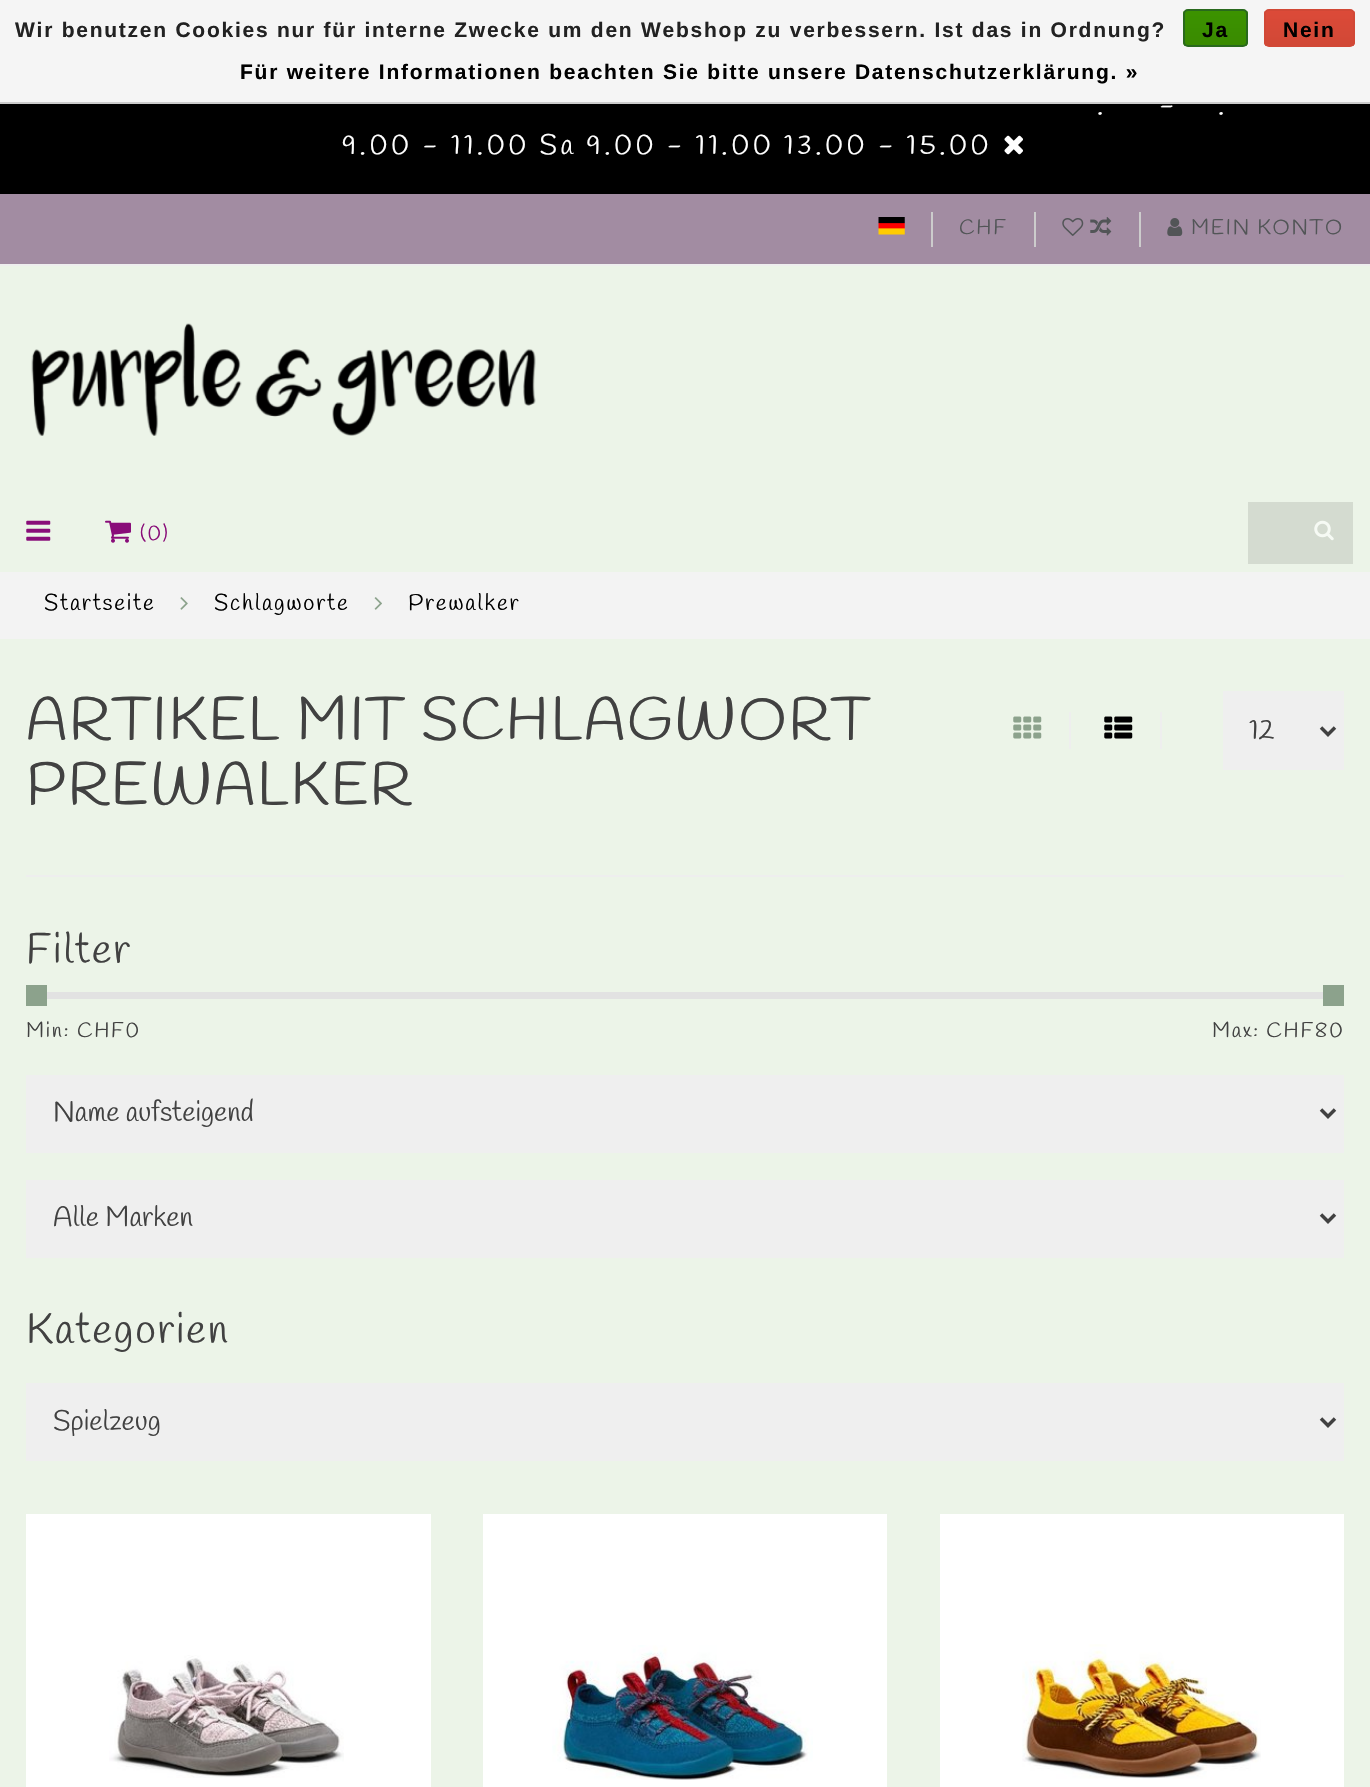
#include "include/core/SkBlurTypes.h"
#include "include/core/SkCanvas.h"
#include "include/core/SkData.h"
#include "include/core/SkFont.h"
#include "include/core/SkFontMgr.h"
#include "include/core/SkImage.h"
#include "include/core/SkMaskFilter.h"
#include "include/core/SkPaint.h"
#include "include/core/SkPathBuilder.h"
#include "include/core/SkTextBlob.h"
#include "include/effects/SkDashPathEffect.h"
#include "include/effects/SkGradientShader.h"
#include "include/utils/SkParsePath.h"

extern sk_sp<SkFontMgr> fontMgr;

static SkFont font(const char* family, int weight, float size, bool italic = false) {
    SkFontStyle style(weight, SkFontStyle::kNormal_Width,
        italic ? SkFontStyle::kItalic_Slant : SkFontStyle::kUpright_Slant);
    SkFont result(fontMgr->matchFamilyStyle(family, style), size);
    result.setSubpixel(true);
    return result;
}

static void drawLabel(SkCanvas* canvas, const char* s, float x, float y, const SkFont& font, SkColor color) {
    SkPaint ink(SkColor4f::FromColor(color));
    ink.setAntiAlias(true);
    canvas->drawString(s, x, y, font, ink);
}

static void drawTracked(SkCanvas* canvas, const char* s, float x, float y, const SkFont& font, const SkPaint& ink, float letter, float word) {
    std::vector<SkGlyphID> glyphs(font.countText(s, strlen(s), SkTextEncoding::kUTF8));
    std::vector<float> xs(glyphs.size());
    font.textToGlyphs(s, strlen(s), SkTextEncoding::kUTF8, glyphs);
    font.getXPos(glyphs, xs, x);
    float extra = 0;
    for (size_t i = 0; i < glyphs.size(); i++) {
        xs[i] += extra;
        extra += letter + word * (glyphs[i] == font.unicharToGlyph(' '));
    }
    canvas->drawTextBlob(SkTextBlob::MakeFromPosHGlyphs(glyphs, xs, y, font), 0, 0, ink);
}

static void fillRect(SkCanvas* canvas, float x, float y, float w, float h, SkColor color) {
    SkPaint ink(SkColor4f::FromColor(color));
    ink.setAntiAlias(true);
    canvas->drawRect(SkRect::MakeXYWH(x, y, w, h), ink);
}

static void drawPhoto(SkCanvas* canvas, const char* path, float x, float y, float w, float h) {
    auto image = SkImages::DeferredFromEncodedData(SkData::MakeFromFileName(path));
    canvas->drawImageRect(image, SkRect::MakeXYWH(x, y, w, h), SkSamplingOptions());
}

static SkPath parsePath(const char* data, bool evenOdd = false) {
    SkPath result = *SkParsePath::FromSVGString(data);
    if (evenOdd) result.setFillType(SkPathFillType::kEvenOdd);
    return result;
}

void draw(SkCanvas* canvas) {
    SkPaint paint;
    paint.setAntiAlias(true);
    canvas->clear(0xFFECF4E8);
    fillRect(canvas, 0, 0, 1370, 102, 0xFFF5F5F5);
    fillRect(canvas, 0, 102, 1370, 2, 0xFFCCCCCC);
    SkFont font1 = font("Liberation Sans", 700, 21);
    paint.setColor(0xFF222222);
    drawTracked(canvas, "Wir benutzen Cookies nur für interne Zwecke um den Webshop zu verbessern. Ist das in Ordnung?", 15, 37, font1, paint, 1.75f, 0);
    canvas->save();
    canvas->clipPath(parsePath("M1188 9H1243C1246 9 1248 11 1248 14V42C1248 45 1246 47 1243 47H1188C1185 47 1183 45 1183 42V14C1183 11 1185 9 1188 9Z"), true);
    {
        const SkColor colors[] = {0xFF3C9300, 0xFF398A00};
        const float stops[] = {0, 1};
        const SkPoint ends[] = {{1215, 10}, {1215, 46}};
        paint.setShader(SkGradientShader::MakeLinear(ends, colors, stops, 2, SkTileMode::kClamp));
        paint.setAlpha(255);
    }
    canvas->drawRect(SkRect::MakeXYWH(1183, 11, 65, 35), paint);
    canvas->restore();
    paint.setStroke(true);
    paint.setStrokeWidth(2);
    paint.setShader(nullptr);
    paint.setColor(0xFF29691D);
    canvas->drawRoundRect(SkRect::MakeXYWH(1184, 10, 63, 36), 4, 4, paint);
    paint.setStroke(false);
    paint.setColor(0xFF000000);
    drawTracked(canvas, "Ja", 1202, 37, font1, paint, 1.75f, 0);
    canvas->save();
    canvas->clipPath(parsePath("M1269 9H1350C1353 9 1355 11 1355 14V42C1355 45 1353 47 1350 47H1269C1266 47 1264 45 1264 42V14C1264 11 1266 9 1269 9Z"), true);
    {
        const SkColor colors[] = {0xFFDC4A38, 0xFFD14836};
        const float stops[] = {0, 1};
        const SkPoint ends[] = {{1309, 10}, {1309, 46}};
        paint.setShader(SkGradientShader::MakeLinear(ends, colors, stops, 2, SkTileMode::kClamp));
        paint.setAlpha(255);
    }
    canvas->drawRect(SkRect::MakeXYWH(1264, 11, 91, 35), paint);
    canvas->restore();
    paint.setStroke(true);
    paint.setShader(nullptr);
    paint.setColor(0xFFD14836);
    canvas->drawRoundRect(SkRect::MakeXYWH(1265, 10, 89, 36), 4, 4, paint);
    paint.setStroke(false);
    paint.setColor(0xFF000000);
    drawTracked(canvas, "Nein", 1283, 37, font1, paint, 1.75f, 0);
    drawTracked(canvas, "Für weitere Informationen beachten Sie bitte unsere Datenschutzerklärung. »", 240, 79, font1, paint, 1.75f, 0);
    fillRect(canvas, 0, 104, 1370, 90, 0xFF000000);
    SkFont font2 = font("Handlee", 400, 28);
    paint.setColor(0xFFFFFFFF);
    drawTracked(canvas, "-", 1159, 114, font2, paint, 3.5f, 0);
    drawTracked(canvas, ".", 1097, 114, font2, paint, 3.5f, 0);
    drawTracked(canvas, ".", 1218, 114, font2, paint, 3.5f, 0);
    drawTracked(canvas, "9.00 - 11.00 Sa 9.00 - 11.00 13.00 - 15.00", 342, 154, font2, paint, 3.5f, 0);
    drawPhoto(canvas, "assets/img1.png", 1004, 135, 19, 20);
    fillRect(canvas, 0, 194, 1370, 70, 0xFFA28CA2);
    fillRect(canvas, 0, 264, 1370, 2, 0xFFEEEEEE);
    fillRect(canvas, 931, 212, 2, 35, 0xFFCCCCCC);
    drawPhoto(canvas, "assets/img2.png", 878, 217, 27, 18);
    fillRect(canvas, 1034, 212, 2, 35, 0xFFCCCCCC);
    SkFont font3 = font("Handlee", 400, 21);
    paint.setColor(0xFF525557);
    drawTracked(canvas, "CHF", 959, 234, font3, paint, 1.75f, 0);
    fillRect(canvas, 1139, 212, 2, 35, 0xFFCCCCCC);
    drawPhoto(canvas, "assets/img3.png", 1062, 218, 22, 18);
    drawPhoto(canvas, "assets/img4.png", 1090, 217, 22, 19);
    drawPhoto(canvas, "assets/img5.png", 1167, 218, 16, 18);
    drawTracked(canvas, "MEIN KONTO", 1191, 234, font3, paint, 1.75f, 0);
    drawPhoto(canvas, "assets/img6.png", 31, 323, 505, 113);
    drawPhoto(canvas, "assets/img7.png", 26, 520, 25, 21);
    drawPhoto(canvas, "assets/img8.png", 105, 520, 26, 23);
    paint.setColor(0xFF890D79);
    drawTracked(canvas, "(0)", 140, 540, font3, paint, 1.75f, 0);
    fillRect(canvas, 1248, 502, 105, 62, 0xFFD4DBD0);
    drawPhoto(canvas, "assets/img9.png", 1314, 520, 20, 21);
    fillRect(canvas, 0, 572, 1370, 67, 0xFFF3F3F3);
    SkFont font4 = font("Handlee", 400, 22.75f);
    paint.setColor(0xFF000000);
    drawTracked(canvas, "Startseite", 44, 610, font4, paint, 1.75f, 0);
    drawPhoto(canvas, "assets/img10.png", 180, 597, 8, 13);
    drawTracked(canvas, "Schlagworte", 214, 610, font4, paint, 1.75f, 0);
    drawPhoto(canvas, "assets/img11.png", 374, 597, 8, 13);
    drawTracked(canvas, "Prewalker", 408, 610, font4, paint, 1.75f, 0);
    SkFont font5 = font("Handlee", 400, 59.5f);
    paint.setColor(0xFF414141);
    drawTracked(canvas, "ARTIKEL MIT SCHLAGWORT", 26, 739, font5, paint, 1.75f, 0);
    drawTracked(canvas, "PREWALKER", 26, 804, font5, paint, 1.75f, 0);
    fillRect(canvas, 1069, 712, 2, 37, 0xFFEEEEEE);
    drawPhoto(canvas, "assets/img12.png", 1013, 716, 29, 23);
    fillRect(canvas, 1160, 712, 2, 37, 0xFFEEEEEE);
    drawPhoto(canvas, "assets/img13.png", 1104, 716, 29, 23);
    fillRect(canvas, 1223, 691, 121, 79, 0xFFEFEFEF);
    paint.setStroke(true);
    paint.setStrokeWidth(3.5f);
    canvas->drawPath(parsePath("M1321 727.5L1328 734.5L1335 727.5"), paint);
    drawLabel(canvas, "12", 1249, 739, font2, 0xFF414141);
    fillRect(canvas, 26, 875, 1318, 2, 0xFFEEEEEE);
    SkFont font6 = font("Handlee", 400, 42);
    paint.setStroke(false);
    drawTracked(canvas, "Filter", 26, 963, font6, paint, 1.75f, 0);
    fillRect(canvas, 44, 992, 1279, 7, 0xFFE2E2E2);
    fillRect(canvas, 26, 985, 21, 21, 0xFF8CA28C);
    fillRect(canvas, 1323, 985, 21, 21, 0xFF8CA28C);
    drawTracked(canvas, "Min: CHF0", 26, 1037, font3, paint, 1.75f, 0);
    drawTracked(canvas, "Max: CHF80", 1212, 1037, font3, paint, 1.75f, 0);
    fillRect(canvas, 26, 1075, 1318, 78, 0xFFEFEFEF);
    paint.setStroke(true);
    canvas->drawPath(parsePath("M1321 1109.5L1328 1116.5L1335 1109.5"), paint);
    drawLabel(canvas, "Name aufsteigend", 53, 1121, font2, 0xFF414141);
    fillRect(canvas, 26, 1180, 1318, 78, 0xFFEFEFEF);
    canvas->drawPath(parsePath("M1321 1214.5L1328 1221.5L1335 1214.5"), paint);
    drawLabel(canvas, "Alle Marken", 53, 1226, font2, 0xFF414141);
    paint.setStroke(false);
    drawTracked(canvas, "Kategorien", 26, 1343, font6, paint, 1.75f, 0);
    fillRect(canvas, 26, 1383, 1318, 78, 0xFFEFEFEF);
    paint.setStroke(true);
    canvas->drawPath(parsePath("M1321 1418.5L1328 1425.5L1335 1418.5"), paint);
    drawLabel(canvas, "Spielzeug", 53, 1430, font2, 0xFF414141);
    fillRect(canvas, 26, 1514, 405, 273, 0xFFFFFFFF);
    drawPhoto(canvas, "assets/img14.png", 109, 1655, 235, 123);
    fillRect(canvas, 483, 1514, 404, 273, 0xFFFFFFFF);
    drawPhoto(canvas, "assets/img15.png", 552, 1645, 261, 135);
    fillRect(canvas, 940, 1514, 404, 273, 0xFFFFFFFF);
    drawPhoto(canvas, "assets/img16.png", 1022, 1644, 239, 135);
}
